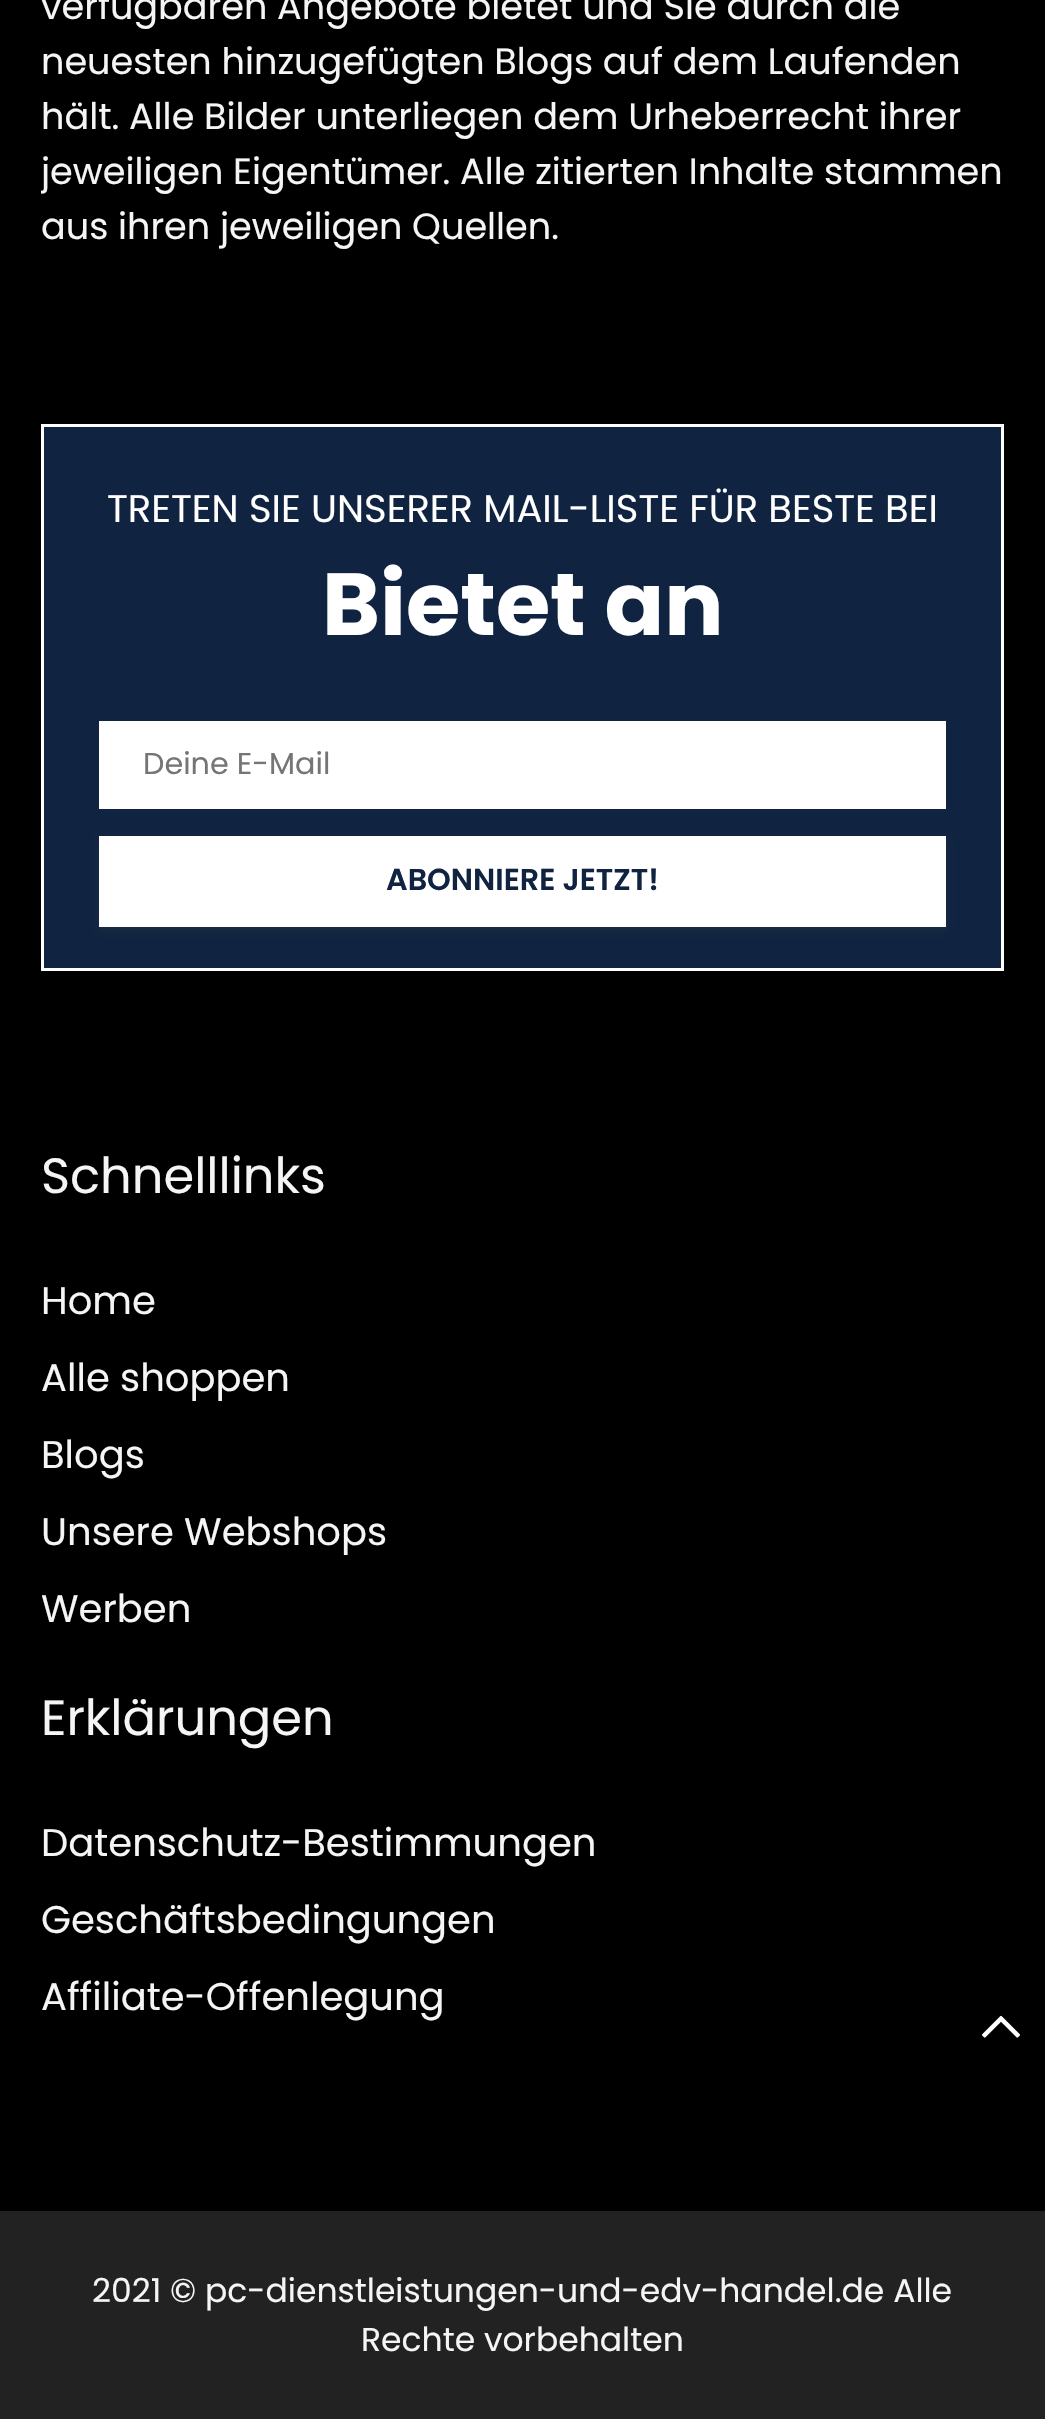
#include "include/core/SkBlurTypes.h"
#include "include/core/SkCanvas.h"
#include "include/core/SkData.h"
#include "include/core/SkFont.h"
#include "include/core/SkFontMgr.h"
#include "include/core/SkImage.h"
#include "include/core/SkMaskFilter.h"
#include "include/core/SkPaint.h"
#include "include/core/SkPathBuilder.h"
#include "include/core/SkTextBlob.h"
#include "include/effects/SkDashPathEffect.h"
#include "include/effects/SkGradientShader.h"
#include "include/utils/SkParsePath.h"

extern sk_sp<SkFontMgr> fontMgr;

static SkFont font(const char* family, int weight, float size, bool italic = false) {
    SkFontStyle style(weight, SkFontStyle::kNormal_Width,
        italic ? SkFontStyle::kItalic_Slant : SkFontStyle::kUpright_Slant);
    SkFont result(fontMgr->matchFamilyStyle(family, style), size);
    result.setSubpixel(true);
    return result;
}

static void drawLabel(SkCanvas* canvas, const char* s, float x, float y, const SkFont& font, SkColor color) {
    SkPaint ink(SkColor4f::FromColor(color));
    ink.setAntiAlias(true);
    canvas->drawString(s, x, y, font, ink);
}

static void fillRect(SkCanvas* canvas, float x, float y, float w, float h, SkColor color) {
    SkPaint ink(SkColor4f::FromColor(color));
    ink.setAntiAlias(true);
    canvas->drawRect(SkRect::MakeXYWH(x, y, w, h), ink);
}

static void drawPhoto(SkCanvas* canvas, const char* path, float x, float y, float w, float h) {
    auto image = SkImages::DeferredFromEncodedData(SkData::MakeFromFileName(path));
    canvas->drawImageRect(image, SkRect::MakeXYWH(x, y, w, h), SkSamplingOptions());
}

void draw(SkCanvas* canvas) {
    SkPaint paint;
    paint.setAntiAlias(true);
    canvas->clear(0xFF000000);
    SkFont font1 = font("Poppins", 400, 36.6f);
    drawLabel(canvas, "verfügbaren Angebote bietet und Sie durch die", 41, 19, font1, 0xFFF5F5F5);
    drawLabel(canvas, "neuesten hinzugefügten Blogs auf dem Laufenden", 41, 74, font1, 0xFFF5F5F5);
    drawLabel(canvas, "hält. Alle Bilder unterliegen dem Urheberrecht ihrer", 41, 129, font1, 0xFFF5F5F5);
    canvas->save();
    canvas->clipRect(SkRect::MakeXYWH(41, 0, 963, 316));
    drawLabel(canvas, "jeweiligen Eigentümer. Alle zitierten Inhalte stammen", 41, 184, font1, 0xFFF5F5F5);
    canvas->restore();
    drawLabel(canvas, "aus ihren jeweiligen Quellen.", 41, 239, font1, 0xFFF5F5F5);
    paint.setColor(0xFF102341);
    canvas->drawRect(SkRect::MakeXYWH(42.5f, 425.5f, 960, 544), paint);
    paint.setStroke(true);
    paint.setStrokeWidth(3);
    paint.setColor(0xFFFFFFFF);
    canvas->drawRect(SkRect::MakeXYWH(42.5f, 425.5f, 960, 544), paint);
    SkFont font2 = font("Poppins", 400, 38.5f);
    drawLabel(canvas, "TRETEN SIE UNSERER MAIL-LISTE FÜR BESTE BEI", 107, 522, font2, 0xFFFFFFFF);
    SkFont font3 = font("Poppins", 700, 88);
    drawLabel(canvas, "Bietet an", 322, 635, font3, 0xFFFFFFFF);
    fillRect(canvas, 99, 721, 847, 88, 0xFFFFFFFF);
    SkFont font4 = font("Poppins", 400, 30.25f);
    drawLabel(canvas, "Deine E-Mail", 143, 774, font4, 0xFF757575);
    paint.setStroke(false);
    paint.setColor(0x4D3C4043);
    paint.setMaskFilter(SkMaskFilter::MakeBlur(kNormal_SkBlurStyle, 3));
    canvas->drawRect(SkRect::MakeXYWH(99, 839, 847, 91), paint);
    paint.setMaskFilter(nullptr);
    fillRect(canvas, 99, 836, 847, 91, 0xFFFFFFFF);
    SkFont font5 = font("Poppins", 600, 30.25f);
    drawLabel(canvas, "ABONNIERE JETZT!", 386, 890, font5, 0xFF102341);
    SkFont font6 = font("Poppins", 400, 49.5f);
    drawLabel(canvas, "Schnelllinks", 41, 1193, font6, 0xFFF5F5F5);
    drawLabel(canvas, "Home", 41, 1314, font2, 0xFFF5F5F5);
    drawLabel(canvas, "Alle shoppen", 41, 1391, font2, 0xFFF5F5F5);
    drawLabel(canvas, "Blogs", 41, 1468, font2, 0xFFF5F5F5);
    drawLabel(canvas, "Unsere Webshops", 41, 1545, font2, 0xFFF5F5F5);
    drawLabel(canvas, "Werben", 41, 1622, font2, 0xFFF5F5F5);
    drawLabel(canvas, "Erklärungen", 41, 1735, font6, 0xFFF5F5F5);
    drawLabel(canvas, "Datenschutz-Bestimmungen", 41, 1856, font2, 0xFFF5F5F5);
    drawLabel(canvas, "Geschäftsbedingungen", 41, 1933, font2, 0xFFF5F5F5);
    drawLabel(canvas, "Affiliate-Offenlegung", 41, 2010, font2, 0xFFF5F5F5);
    fillRect(canvas, 0, 2211, 1045, 208, 0xFF222222);
    SkFont font7 = font("Poppins", 400, 33);
    drawLabel(canvas, "2021 © pc-dienstleistungen-und-edv-handel.de Alle", 92, 2302, font7, 0xFFF5F5F5);
    drawLabel(canvas, "Rechte vorbehalten", 361, 2351, font7, 0xFFF5F5F5);
    drawPhoto(canvas, "assets/img1.png", 982, 2015, 38, 23);
}
